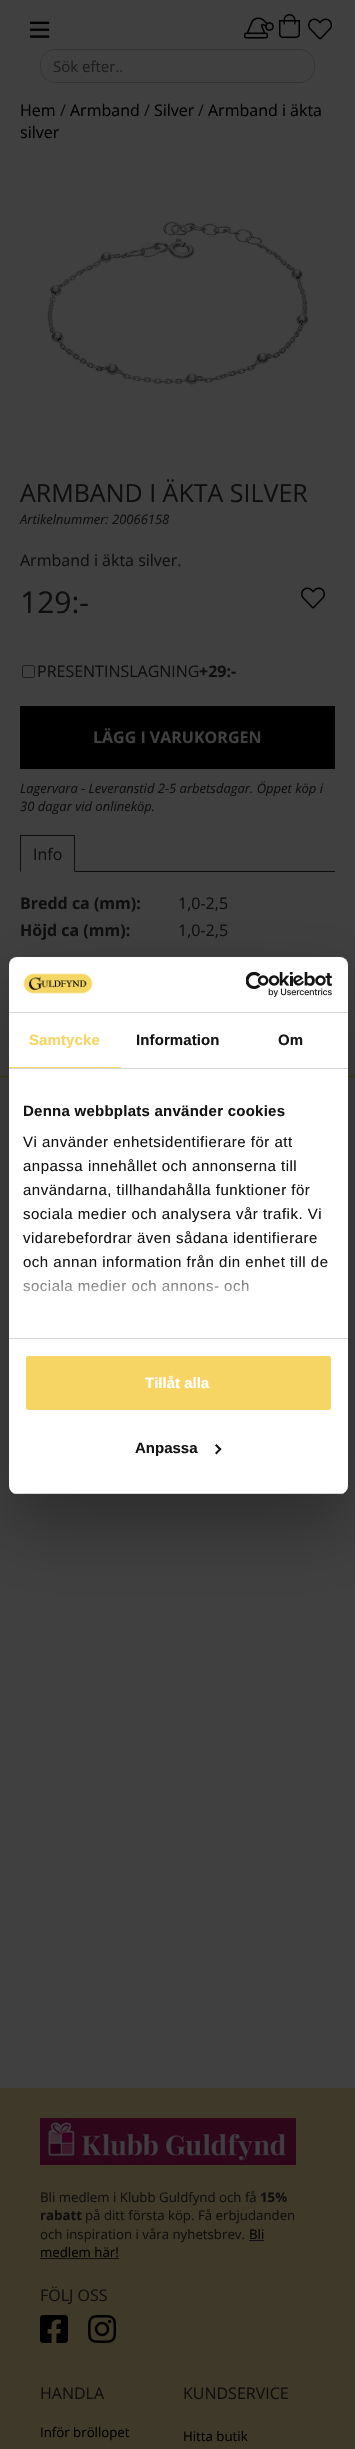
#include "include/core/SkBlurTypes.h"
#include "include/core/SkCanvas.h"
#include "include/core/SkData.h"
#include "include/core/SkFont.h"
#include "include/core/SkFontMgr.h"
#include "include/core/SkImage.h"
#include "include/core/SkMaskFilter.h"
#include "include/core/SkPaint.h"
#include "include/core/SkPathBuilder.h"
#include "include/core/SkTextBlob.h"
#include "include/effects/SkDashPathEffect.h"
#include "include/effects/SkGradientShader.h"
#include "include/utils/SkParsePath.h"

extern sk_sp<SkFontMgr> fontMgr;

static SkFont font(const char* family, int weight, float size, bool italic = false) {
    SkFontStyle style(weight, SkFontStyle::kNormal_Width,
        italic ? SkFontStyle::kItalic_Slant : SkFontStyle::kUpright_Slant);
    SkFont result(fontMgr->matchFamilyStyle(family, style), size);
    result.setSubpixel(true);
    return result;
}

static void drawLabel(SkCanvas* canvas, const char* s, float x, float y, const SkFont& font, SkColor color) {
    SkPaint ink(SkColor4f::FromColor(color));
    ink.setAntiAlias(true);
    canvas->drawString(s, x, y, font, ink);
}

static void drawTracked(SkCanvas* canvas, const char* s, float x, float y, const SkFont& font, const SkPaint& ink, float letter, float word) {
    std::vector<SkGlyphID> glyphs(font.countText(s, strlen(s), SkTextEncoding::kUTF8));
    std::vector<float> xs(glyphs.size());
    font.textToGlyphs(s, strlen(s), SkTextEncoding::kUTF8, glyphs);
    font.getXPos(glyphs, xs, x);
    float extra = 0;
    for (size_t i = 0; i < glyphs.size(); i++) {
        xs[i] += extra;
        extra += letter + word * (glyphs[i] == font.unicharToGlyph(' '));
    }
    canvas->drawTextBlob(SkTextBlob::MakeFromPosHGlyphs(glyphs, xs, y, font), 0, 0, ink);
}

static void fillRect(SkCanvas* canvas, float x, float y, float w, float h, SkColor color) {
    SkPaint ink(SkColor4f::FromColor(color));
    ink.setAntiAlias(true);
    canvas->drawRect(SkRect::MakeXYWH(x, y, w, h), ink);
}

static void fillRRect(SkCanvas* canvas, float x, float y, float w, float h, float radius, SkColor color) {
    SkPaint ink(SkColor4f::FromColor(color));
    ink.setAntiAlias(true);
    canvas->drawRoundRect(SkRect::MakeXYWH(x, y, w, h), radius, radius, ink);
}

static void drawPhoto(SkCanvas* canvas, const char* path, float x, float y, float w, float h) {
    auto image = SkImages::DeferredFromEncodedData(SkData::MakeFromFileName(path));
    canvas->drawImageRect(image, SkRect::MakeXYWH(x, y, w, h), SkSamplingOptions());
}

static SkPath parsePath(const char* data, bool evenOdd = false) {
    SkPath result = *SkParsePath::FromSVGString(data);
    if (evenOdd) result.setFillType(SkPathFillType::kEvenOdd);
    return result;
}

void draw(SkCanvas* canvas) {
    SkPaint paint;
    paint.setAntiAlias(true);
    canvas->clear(0xFF404040);
    drawPhoto(canvas, "assets/img1.png", 30, 21, 20, 17);
    drawPhoto(canvas, "assets/img2.png", 244, 17, 30, 22);
    drawPhoto(canvas, "assets/img3.png", 279, 14, 21, 24);
    drawPhoto(canvas, "assets/img4.png", 308, 18, 24, 22);
    paint.setStroke(true);
    paint.setStrokeWidth(1);
    paint.setColor(0xFF333333);
    canvas->drawRoundRect(SkRect::MakeXYWH(40.5f, 49.5f, 274, 33), 14.5f, 14.5f, paint);
    SkFont font1 = font("Open Sans", 400, 15);
    drawLabel(canvas, "Sök efter..", 53, 72, font1, 0xFF1D1D1D);
    SkFont font2 = font("Open Sans", 400, 16);
    drawLabel(canvas, "Hem", 20, 116, font2, 0xFF000000);
    drawLabel(canvas, "/", 60, 116, font2, 0xFF0E0E0E);
    drawLabel(canvas, "Armband", 70, 116, font2, 0xFF000000);
    drawLabel(canvas, "/", 144, 116, font2, 0xFF0E0E0E);
    drawLabel(canvas, "Silver", 154, 116, font2, 0xFF000000);
    drawLabel(canvas, "/", 198, 116, font2, 0xFF0E0E0E);
    drawLabel(canvas, "Armband i äkta", 208, 116, font2, 0xFF000000);
    drawLabel(canvas, "silver", 20, 138, font2, 0xFF000000);
    drawPhoto(canvas, "assets/img5.png", 47, 221, 261, 164);
    SkFont font3 = font("Open Sans", 400, 25);
    drawLabel(canvas, "ARMBAND I ÄKTA SILVER", 20, 502, font3, 0xFF0E0E0E);
    SkFont font4 = font("Open Sans", 400, 13, true);
    drawLabel(canvas, "Artikelnummer: 20066158", 20, 524, font4, 0xFF0E0E0E);
    drawLabel(canvas, "Armband i äkta silver.", 20, 566, font2, 0xFF0E0E0E);
    SkFont font5 = font("Open Sans", 400, 30);
    drawLabel(canvas, "129:-", 20, 613, font5, 0xFF0E0E0E);
    drawPhoto(canvas, "assets/img4.png", 301, 587, 24, 22);
    paint.setColor(0xFF1E1E1E);
    canvas->drawRoundRect(SkRect::MakeXYWH(22.5f, 665.5f, 12, 12), 1.5f, 1.5f, paint);
    drawLabel(canvas, "PRESENTINSLAGNING", 37, 677, font2, 0xFF0E0E0E);
    SkFont font6 = font("Open Sans", 700, 16);
    drawLabel(canvas, "+29:-", 199, 677, font6, 0xFF0E0E0E);
    fillRect(canvas, 20, 706, 315, 63, 0xFF000000);
    drawLabel(canvas, "LÄGG I VARUKORGEN", 93, 743, font6, 0xFF404040);
    drawLabel(canvas, "Lagervara - Leveranstid 2-5 arbetsdagar. Öppet köp i", 20, 793, font4, 0xFF0E0E0E);
    drawLabel(canvas, "30 dagar vid onlineköp.", 20, 811, font4, 0xFF0E0E0E);
    fillRect(canvas, 75, 871, 260, 1, 0xFF0E0E0E);
    fillRect(canvas, 20, 835, 55, 1, 0xFF0E0E0E);
    paint.setStroke(false);
    paint.setColor(0xFF0E0E0E);
    canvas->drawPath(parsePath("M75 835V872L74 871V836ZM20 872V835L21 836V871Z"), paint);
    drawLabel(canvas, "Info", 33, 860, font2, 0xFF0E0E0E);
    drawLabel(canvas, "Bredd ca (mm):", 20, 909, font6, 0xFF0E0E0E);
    drawLabel(canvas, "1,0-2,5", 178, 909, font2, 0xFF0E0E0E);
    drawLabel(canvas, "Höjd ca (mm):", 20, 936, font6, 0xFF0E0E0E);
    drawLabel(canvas, "1,0-2,5", 178, 936, font2, 0xFF0E0E0E);
    fillRect(canvas, 0, 1076, 355, 1, 0xFF403A02);
    fillRect(canvas, 0, 2088, 355, 361, 0xFF3E3928);
    drawPhoto(canvas, "assets/img6.png", 40, 2118, 256, 47);
    SkFont font7 = font("Open Sans", 400, 13.25f);
    drawLabel(canvas, "Bli medlem i Klubb Guldfynd och få", 40, 2202, font7, 0xFF0E0E0E);
    SkFont font8 = font("Open Sans", 700, 13.25f);
    drawLabel(canvas, "15%", 260, 2202, font8, 0xFF0E0E0E);
    drawLabel(canvas, "rabatt", 40, 2220, font8, 0xFF0E0E0E);
    drawLabel(canvas, "på ditt första köp. Få erbjudanden", 85, 2220, font7, 0xFF0E0E0E);
    drawLabel(canvas, "och inspiration i våra nyhetsbrev.", 40, 2239, font7, 0xFF0E0E0E);
    fillRect(canvas, 249, 2240, 15, 1, 0xFF0E0E0E);
    drawLabel(canvas, "Bli", 249, 2239, font7, 0xFF000000);
    drawLabel(canvas, "medlem här!", 40, 2257, font7, 0xFF000000);
    fillRect(canvas, 40, 2258, 79, 1, 0xFF0E0E0E);
    drawLabel(canvas, "FÖLJ OSS", 40, 2301, font2, 0xFF0E0E0E);
    drawPhoto(canvas, "assets/img7.png", 40, 2315, 28, 28);
    drawPhoto(canvas, "assets/img8.png", 88, 2315, 29, 28);
    drawLabel(canvas, "HANDLA", 40, 2399, font2, 0xFF0E0E0E);
    drawLabel(canvas, "Inför bröllopet", 40, 2437, font7, 0xFF000000);
    drawLabel(canvas, "KUNDSERVICE", 183, 2399, font2, 0xFF0E0E0E);
    drawLabel(canvas, "Hitta butik", 183, 2441, font7, 0xFF000000);
    paint.setColor(0x4D000000);
    paint.setMaskFilter(SkMaskFilter::MakeBlur(kNormal_SkBlurStyle, 34));
    canvas->drawRoundRect(SkRect::MakeXYWH(9, 989, 339, 537), 8, 8, paint);
    paint.setMaskFilter(nullptr);
    fillRRect(canvas, 9, 957, 339, 537, 8, 0xFFFFFFFF);
    fillRect(canvas, 9, 1012, 339, 1, 0xFFD6D6D6);
    drawPhoto(canvas, "assets/img9.png", 23, 973, 70, 21);
    drawPhoto(canvas, "assets/img10.png", 246, 972, 87, 25);
    fillRect(canvas, 9, 1068, 339, 1, 0xFFD6D6D6);
    fillRect(canvas, 9, 1067, 112, 1, 0xFFF7D564);
    SkFont font9 = font("Liberation Sans", 700, 15);
    paint.setColor(0xFFF7D564);
    drawTracked(canvas, "Samtycke", 29, 1045, font9, paint, 0.1f, 0);
    paint.setColor(0xFF141414);
    drawTracked(canvas, "Information", 136, 1045, font9, paint, 0.1f, 0);
    drawTracked(canvas, "Om", 278, 1045, font9, paint, 0.1f, 0);
    fillRect(canvas, 9, 1338, 339, 1, 0xFFD6D6D6);
    drawTracked(canvas, "Denna webbplats använder cookies", 23, 1116, font9, paint, 0.25f, 0);
    SkFont font10 = font("Liberation Sans", 400, 15);
    drawTracked(canvas, "Vi använder enhetsidentifierare för att", 23, 1147, font10, paint, 0.5f, 0);
    drawTracked(canvas, "anpassa innehållet och annonserna till", 23, 1171, font10, paint, 0.5f, 0);
    drawTracked(canvas, "användarna, tillhandahålla funktioner för", 23, 1195, font10, paint, 0.5f, 0);
    drawTracked(canvas, "sociala medier och analysera vår trafik. Vi", 23, 1219, font10, paint, 0.5f, 0);
    drawTracked(canvas, "vidarebefordrar även sådana identifierare", 23, 1243, font10, paint, 0.5f, 0);
    drawTracked(canvas, "och annan information från din enhet till de", 23, 1267, font10, paint, 0.5f, 0);
    drawTracked(canvas, "sociala medier och annons- och", 23, 1291, font10, paint, 0.5f, 0);
    {
        const SkColor colors[] = {0xFFFFFFFF, 0xCCFFFFFF, 0x00FFFFFF};
        const float stops[] = {0, 0.5f, 1};
        const SkPoint ends[] = {{172, 1338}, {172, 1263}};
        paint.setShader(SkGradientShader::MakeLinear(ends, colors, stops, 3, SkTileMode::kClamp));
        paint.setAlpha(255);
    }
    canvas->drawRect(SkRect::MakeXYWH(23, 1264, 304, 28), paint);
    canvas->save();
    canvas->clipPath(parsePath("M17 957H340C344.5 957 348 960.5 348 965V1486C348 1490.5 344.5 1494 340 1494H17C12.5 1494 9 1490.5 9 1486V965C9 960.5 12.5 957 17 957Z"), true);
    fillRect(canvas, 9, 1493, 339, 1, 0xFFD6D6D6);
    canvas->restore();
    paint.setShader(nullptr);
    paint.setColor(0xFFF7D564);
    canvas->drawRoundRect(SkRect::MakeXYWH(25, 1355, 307, 56), 3, 3, paint);
    paint.setStroke(true);
    paint.setStrokeWidth(2);
    paint.setColor(0xFFFFFFFF);
    canvas->drawRoundRect(SkRect::MakeXYWH(25, 1355, 307, 56), 3, 3, paint);
    drawLabel(canvas, "Tillåt alla", 145, 1388, font9, 0xFFFFFFFF);
    drawLabel(canvas, "Anpassa", 135, 1453, font9, 0xFF141414);
    paint.setStroke(false);
    paint.setColor(0xFF141414);
    canvas->drawPath(parsePath("M216.5 1444L221.5 1449L220 1450.5L215 1445.5Z"), paint);
    canvas->drawPath(parsePath("M220 1448L221.5 1449L216.5 1454.5L215 1453Z"), paint);
}
